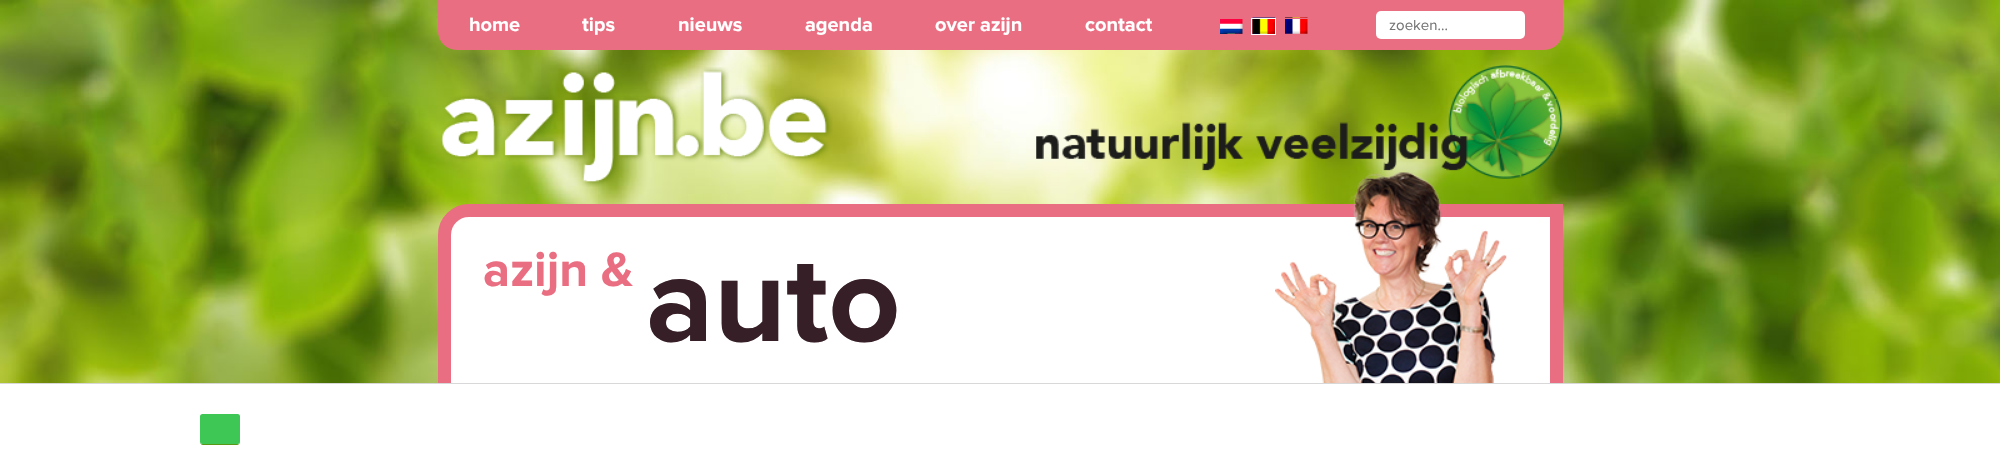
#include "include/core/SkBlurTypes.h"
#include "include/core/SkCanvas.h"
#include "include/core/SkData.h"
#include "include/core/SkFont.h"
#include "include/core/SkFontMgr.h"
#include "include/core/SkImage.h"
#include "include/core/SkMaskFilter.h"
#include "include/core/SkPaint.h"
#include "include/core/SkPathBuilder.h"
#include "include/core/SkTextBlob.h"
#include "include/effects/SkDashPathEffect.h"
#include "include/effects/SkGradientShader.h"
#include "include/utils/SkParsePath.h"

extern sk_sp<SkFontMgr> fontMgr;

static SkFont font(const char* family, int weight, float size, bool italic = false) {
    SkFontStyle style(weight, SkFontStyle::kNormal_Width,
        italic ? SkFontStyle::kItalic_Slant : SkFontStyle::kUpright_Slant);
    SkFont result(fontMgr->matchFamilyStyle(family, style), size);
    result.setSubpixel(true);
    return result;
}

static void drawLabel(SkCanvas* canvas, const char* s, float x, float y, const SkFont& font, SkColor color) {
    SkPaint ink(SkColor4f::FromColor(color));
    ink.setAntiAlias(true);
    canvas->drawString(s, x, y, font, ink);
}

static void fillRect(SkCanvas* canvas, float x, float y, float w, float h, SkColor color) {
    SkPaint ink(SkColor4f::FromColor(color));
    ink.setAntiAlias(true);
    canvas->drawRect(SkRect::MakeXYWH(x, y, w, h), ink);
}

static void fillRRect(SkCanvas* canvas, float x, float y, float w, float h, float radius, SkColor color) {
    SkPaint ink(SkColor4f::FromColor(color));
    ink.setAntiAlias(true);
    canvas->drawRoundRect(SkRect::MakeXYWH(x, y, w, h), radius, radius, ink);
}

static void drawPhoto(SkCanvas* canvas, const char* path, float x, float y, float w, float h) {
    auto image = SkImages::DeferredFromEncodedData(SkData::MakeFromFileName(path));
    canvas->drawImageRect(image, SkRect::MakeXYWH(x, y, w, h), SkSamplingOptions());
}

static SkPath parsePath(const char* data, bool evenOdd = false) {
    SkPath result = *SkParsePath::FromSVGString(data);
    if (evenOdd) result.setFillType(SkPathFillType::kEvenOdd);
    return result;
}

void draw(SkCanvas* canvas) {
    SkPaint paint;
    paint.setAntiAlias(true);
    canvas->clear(0xFFFFFFFF);
    drawPhoto(canvas, "assets/img1.png", 0, 0, 2000, 383);
    paint.setColor(0xFFEA6E81);
    canvas->drawPath(parsePath("M438 0H1563V31C1563 41.5 1554.5 50 1544 50H457C446.5 50 438 41.5 438 31Z"), paint);
    SkFont font1 = font("Proxima Nova", 700, 20);
    drawLabel(canvas, "home", 469, 31, font1, 0xFFFFFFFF);
    drawLabel(canvas, "tips", 582, 31, font1, 0xFFFFFFFF);
    drawLabel(canvas, "nieuws", 678, 31, font1, 0xFFFFFFFF);
    drawLabel(canvas, "agenda", 805, 31, font1, 0xFFFFFFFF);
    drawLabel(canvas, "over azijn", 935, 31, font1, 0xFFFFFFFF);
    drawLabel(canvas, "contact", 1085, 31, font1, 0xFFFFFFFF);
    drawPhoto(canvas, "assets/img2.png", 1220, 19, 23, 15);
    drawPhoto(canvas, "assets/img3.png", 1252, 17, 23, 17);
    paint.setStroke(true);
    paint.setStrokeWidth(1);
    paint.setColor(0xFFFFFFFF);
    canvas->drawRect(SkRect::MakeXYWH(1251.5f, 18.5f, 24, 16), paint);
    drawPhoto(canvas, "assets/img4.png", 1285, 17, 23, 17);
    paint.setColor(0xFFEA6E81);
    canvas->drawRect(SkRect::MakeXYWH(1284.5f, 18.5f, 24, 16), paint);
    fillRRect(canvas, 1376, 11, 149, 28, 5, 0xFFFFFFFF);
    SkFont font2 = font("Proxima Nova", 400, 15);
    drawLabel(canvas, "zoeken...", 1389, 30, font2, 0xFF757575);
    drawPhoto(canvas, "assets/img5.png", 441, 67, 392, 120);
    drawPhoto(canvas, "assets/img6.png", 1036, 65, 527, 114);
    paint.setStroke(false);
    paint.setColor(0xFFFFFFFF);
    canvas->drawPath(parsePath("M469 210.5H1556.5V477C1556.5 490.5 1545.5 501.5 1532 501.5H444.5V235C444.5 221.5 455.5 210.5 469 210.5Z"), paint);
    paint.setStroke(true);
    paint.setStrokeWidth(13);
    paint.setColor(0xFFEA6E81);
    canvas->drawPath(parsePath("M469 210.5H1556.5V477C1556.5 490.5 1545.5 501.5 1532 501.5H444.5V235C444.5 221.5 455.5 210.5 469 210.5Z"), paint);
    SkFont font3 = font("Proxima Nova", 700, 50);
    drawLabel(canvas, "azijn &", 483, 286, font3, 0xFFEA6E81);
    SkFont font4 = font("Proxima Nova", 700, 125);
    drawLabel(canvas, "auto", 646, 341, font4, 0xFF361F27);
    drawPhoto(canvas, "assets/img7.png", 1275, 172, 232, 211);
    fillRect(canvas, 438, 384, 1125, 80, 0xFFFFFFFF);
    fillRect(canvas, 0, 383, 2000, 1, 0xFFD8D8D8);
    paint.setStroke(false);
    paint.setColor(0xFF599716);
    canvas->drawPath(parsePath("M200 441C200 446 204 445 208 445H232C236 445 240 446 240 441C240 443 239 444 238 444H202C201 444 200 443 200 441Z"), paint);
    fillRRect(canvas, 200, 414, 40, 30, 2.5f, 0xFF3FC756);
}
